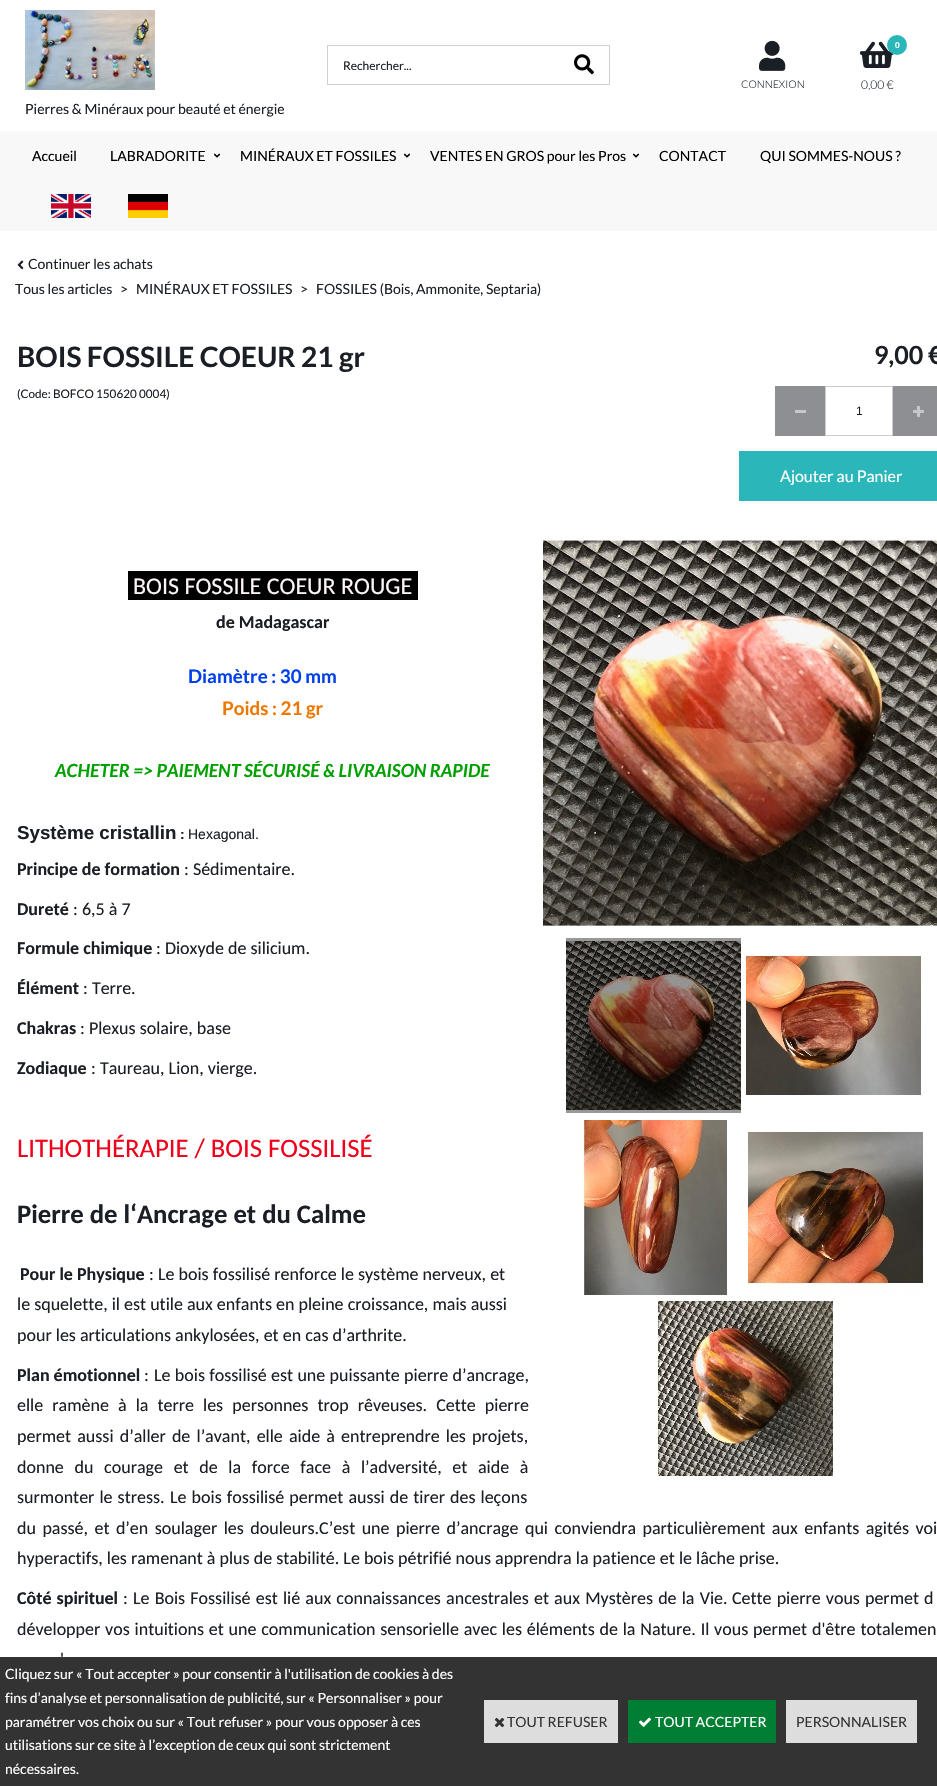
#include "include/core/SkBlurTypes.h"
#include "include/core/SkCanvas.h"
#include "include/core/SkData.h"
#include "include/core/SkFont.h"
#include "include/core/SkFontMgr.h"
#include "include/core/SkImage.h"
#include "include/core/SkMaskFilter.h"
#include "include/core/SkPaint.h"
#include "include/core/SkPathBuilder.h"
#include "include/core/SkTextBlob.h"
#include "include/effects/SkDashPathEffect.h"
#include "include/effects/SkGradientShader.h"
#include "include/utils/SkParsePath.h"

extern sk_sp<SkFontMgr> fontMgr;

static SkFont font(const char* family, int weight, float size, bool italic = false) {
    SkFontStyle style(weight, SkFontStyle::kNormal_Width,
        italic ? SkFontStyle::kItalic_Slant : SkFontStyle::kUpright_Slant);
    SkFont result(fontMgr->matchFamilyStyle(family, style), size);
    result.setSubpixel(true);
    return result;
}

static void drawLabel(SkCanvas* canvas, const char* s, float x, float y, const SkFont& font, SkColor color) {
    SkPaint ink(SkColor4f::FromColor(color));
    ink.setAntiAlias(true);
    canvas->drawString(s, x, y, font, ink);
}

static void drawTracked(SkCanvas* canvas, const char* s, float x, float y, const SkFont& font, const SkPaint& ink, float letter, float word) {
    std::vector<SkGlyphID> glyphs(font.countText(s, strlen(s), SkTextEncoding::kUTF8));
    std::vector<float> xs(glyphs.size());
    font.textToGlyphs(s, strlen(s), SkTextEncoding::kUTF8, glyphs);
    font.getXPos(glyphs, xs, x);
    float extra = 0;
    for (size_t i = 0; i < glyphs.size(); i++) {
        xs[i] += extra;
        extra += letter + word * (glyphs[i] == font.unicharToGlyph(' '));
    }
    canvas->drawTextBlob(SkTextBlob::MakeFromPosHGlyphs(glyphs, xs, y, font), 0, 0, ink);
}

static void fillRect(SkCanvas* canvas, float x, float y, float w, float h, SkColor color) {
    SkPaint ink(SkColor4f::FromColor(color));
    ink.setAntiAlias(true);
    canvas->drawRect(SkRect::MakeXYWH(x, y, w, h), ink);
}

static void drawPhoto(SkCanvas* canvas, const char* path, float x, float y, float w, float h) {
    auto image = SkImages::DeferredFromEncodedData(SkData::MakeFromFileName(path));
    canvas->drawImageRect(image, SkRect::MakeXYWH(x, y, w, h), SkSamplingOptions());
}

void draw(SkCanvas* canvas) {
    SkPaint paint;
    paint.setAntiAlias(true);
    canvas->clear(0xFFFFFFFF);
    fillRect(canvas, 327, 45, 283, 1, 0xFFD0D0D0);
    fillRect(canvas, 327, 84, 232, 1, 0xFFD0D0D0);
    fillRect(canvas, 327, 45, 1, 40, 0xFFD0D0D0);
    SkFont font1 = font("Lato", 400, 12);
    drawLabel(canvas, "Rechercher...", 343, 70, font1, 0xFF1A1F26);
    fillRect(canvas, 609, 45, 1, 40, 0xFFD0D0D0);
    fillRect(canvas, 559, 84, 51, 1, 0xFFD0D0D0);
    drawPhoto(canvas, "assets/img1.png", 574, 54, 20, 21);
    drawPhoto(canvas, "assets/img2.png", 759, 40, 27, 31);
    SkFont font2 = font("Lato", 300, 10.5f);
    drawLabel(canvas, "CONNEXION", 741, 88, font2, 0xFF1A1F26);
    drawPhoto(canvas, "assets/img3.png", 860, 41, 34, 27);
    paint.setColor(0xFF2BB7BA);
    canvas->drawCircle(897, 45, 10, paint);
    SkFont font3 = font("Lato", 700, 8);
    drawLabel(canvas, "0", 895, 48, font3, 0xFFFFFFFF);
    SkFont font4 = font("Lato", 300, 12);
    drawLabel(canvas, "0,00 €", 861, 89, font4, 0xFF1A1F26);
    drawPhoto(canvas, "assets/img4.png", 25, 10, 130, 80);
    SkFont font5 = font("Lato", 400, 14);
    drawLabel(canvas, "Pierres & Minéraux pour beauté et énergie", 25, 114, font5, 0xFF1A1F26);
    fillRect(canvas, 0, 131, 937, 100, 0xFFF8F8F8);
    drawLabel(canvas, "Accueil", 32, 161, font5, 0xFF000000);
    drawLabel(canvas, "LABRADORITE", 110, 161, font5, 0xFF000000);
    drawPhoto(canvas, "assets/img5.png", 213, 153, 8, 5);
    drawLabel(canvas, "MINÉRAUX ET FOSSILES", 240, 161, font5, 0xFF000000);
    drawPhoto(canvas, "assets/img5.png", 403, 153, 8, 5);
    drawLabel(canvas, "VENTES EN GROS pour les Pros", 430, 161, font5, 0xFF000000);
    drawPhoto(canvas, "assets/img5.png", 632, 153, 8, 5);
    drawLabel(canvas, "CONTACT", 659, 161, font5, 0xFF000000);
    drawLabel(canvas, "QUI SOMMES-NOUS ?", 760, 161, font5, 0xFF000000);
    drawPhoto(canvas, "assets/img6.png", 51, 194, 40, 24);
    drawPhoto(canvas, "assets/img7.png", 128, 194, 40, 24);
    drawPhoto(canvas, "assets/img8.png", 17, 260, 7, 10);
    drawLabel(canvas, "Continuer les achats", 28, 269, font5, 0xFF1A1F26);
    drawLabel(canvas, "Tous les articles", 15, 294, font5, 0xFF1A1F26);
    drawLabel(canvas, ">", 120, 294, font5, 0xFF1A1F26);
    drawLabel(canvas, "MINÉRAUX ET FOSSILES", 136, 294, font5, 0xFF1A1F26);
    drawLabel(canvas, ">", 300, 294, font5, 0xFF1A1F26);
    drawLabel(canvas, "FOSSILES (Bois, Ammonite, Septaria)", 316, 294, font5, 0xFF1A1F26);
    SkFont font6 = font("Lato", 700, 28);
    drawLabel(canvas, "BOIS FOSSILE COEUR 21 gr", 17, 367, font6, 0xFF1A1F26);
    SkFont font7 = font("Lato", 400, 11.7f);
    drawLabel(canvas, "(Code: BOFCO 150620 0004)", 17, 398, font7, 0xFF1A1F26);
    SkFont font8 = font("Lato", 700, 25);
    drawLabel(canvas, "9,00 €", 874, 364, font8, 0xFF1A1F26);
    fillRect(canvas, 775, 386, 50, 50, 0xFF8D8F93);
    fillRect(canvas, 795, 410, 11, 3, 0xFFC6C7C9);
    paint.setStroke(true);
    paint.setStrokeWidth(1);
    paint.setColor(0xFFCCCCCC);
    canvas->drawRect(SkRect::MakeXYWH(825.5f, 386.5f, 67, 49), paint);
    SkFont font9 = font("Liberation Sans", 400, 12);
    drawLabel(canvas, "1", 856, 415, font9, 0xFF212121);
    fillRect(canvas, 893, 386, 44, 50, 0xFF8D8F93);
    drawPhoto(canvas, "assets/img9.png", 913, 406, 11, 11);
    fillRect(canvas, 739, 451, 198, 50, 0xFF2BB7BA);
    SkFont font10 = font("Lato", 400, 16);
    drawLabel(canvas, "Ajouter au Panier", 780, 482, font10, 0xFFFFFFFF);
    drawPhoto(canvas, "assets/img10.png", 543, 533, 394, 399);
    drawPhoto(canvas, "assets/img11.png", 566, 938, 175, 175);
    drawPhoto(canvas, "assets/img12.png", 746, 954, 175, 142);
    drawPhoto(canvas, "assets/img13.png", 583, 1120, 145, 175);
    drawPhoto(canvas, "assets/img14.png", 748, 1130, 175, 165);
    drawPhoto(canvas, "assets/img15.png", 658, 1301, 175, 175);
    fillRect(canvas, 128, 571, 290, 29, 0xFF000000);
    SkFont font11 = font("Carlito", 400, 24);
    drawLabel(canvas, "BOIS FOSSILE COEUR ROUGE", 133, 594, font11, 0xFFFEF5F6);
    SkFont font12 = font("Carlito", 700, 18);
    drawLabel(canvas, "de Madagascar", 216, 628, font12, 0xFF1A1F26);
    SkFont font13 = font("Lato", 700, 18.75f);
    drawLabel(canvas, "Diamètre : 30 mm", 188, 683, font13, 0xFF0040EB);
    drawLabel(canvas, "Poids : 21 gr", 222, 715, font13, 0xFFED7700);
    SkFont font14 = font("Lato", 700, 18, true);
    drawLabel(canvas, "ACHETER => PAIEMENT SÉCURISÉ & LIVRAISON RAPIDE", 55, 777, font14, 0xFF00A000);
    SkFont font15 = font("Liberation Sans", 700, 18.75f);
    drawLabel(canvas, "Système cristallin", 17, 839, font15, 0xFF1A1F26);
    SkFont font16 = font("Liberation Sans", 700, 14);
    drawLabel(canvas, ":", 180, 839, font16, 0xFF1A1F26);
    SkFont font17 = font("Liberation Sans", 400, 14);
    drawLabel(canvas, "Hexagonal.", 188, 839, font17, 0xFF1A1F26);
    drawLabel(canvas, "Principe de formation", 17, 875, font12, 0xFF1A1F26);
    SkFont font18 = font("Carlito", 400, 18);
    drawLabel(canvas, ": Sédimentaire.", 184, 875, font18, 0xFF1A1F26);
    drawLabel(canvas, "Dureté", 17, 915, font12, 0xFF1A1F26);
    drawLabel(canvas, ": 6,5 à 7", 73, 915, font18, 0xFF1A1F26);
    drawLabel(canvas, "Formule chimique", 17, 954, font12, 0xFF1A1F26);
    drawLabel(canvas, ": Dioxyde de silicium.", 156, 954, font18, 0xFF1A1F26);
    drawLabel(canvas, "Élément", 17, 994, font12, 0xFF1A1F26);
    drawLabel(canvas, ": Terre.", 83, 994, font18, 0xFF1A1F26);
    drawLabel(canvas, "Chakras", 17, 1034, font12, 0xFF1A1F26);
    drawLabel(canvas, ": Plexus solaire, base", 80, 1034, font18, 0xFF1A1F26);
    drawLabel(canvas, "Zodiaque", 17, 1074, font12, 0xFF1A1F26);
    drawLabel(canvas, ": Taureau, Lion, vierge.", 91, 1074, font18, 0xFF1A1F26);
    SkFont font19 = font("Carlito", 400, 26.7f);
    drawLabel(canvas, "LITHOTHÉRAPIE / BOIS FOSSILISÉ", 17, 1157, font19, 0xFFEF001B);
    SkFont font20 = font("Carlito", 700, 26.7f);
    drawLabel(canvas, "Pierre de l‘Ancrage et du Calme", 17, 1223, font20, 0xFF1A1F26);
    drawLabel(canvas, "Pour le Physique", 20, 1280, font12, 0xFF1A1F26);
    drawLabel(canvas, ": Le bois fossilisé renforce le système nerveux, et", 149, 1280, font18, 0xFF1A1F26);
    drawLabel(canvas, "le squelette, il est utile aux enfants en pleine croissance, mais aussi", 17, 1310, font18, 0xFF1A1F26);
    drawLabel(canvas, "pour les articulations ankylosées, et en cas d’arthrite.", 17, 1341, font18, 0xFF1A1F26);
    drawLabel(canvas, "Plan émotionnel", 17, 1381, font12, 0xFF1A1F26);
    drawLabel(canvas, ":", 144, 1381, font18, 0xFF1A1F26);
    paint.setStroke(false);
    paint.setColor(0xFF1A1F26);
    drawTracked(canvas, "Le bois fossilisé est une puissante pierre d’ancrage,", 154, 1381, font18, paint, 0, 0.25f);
    drawTracked(canvas, "elle ramène à la terre les personnes trop rêveuses. Cette pierre", 17, 1411, font18, paint, 0, 5);
    drawTracked(canvas, "permet aussi d’aller de l’avant, elle aide à entreprendre les projets,", 17, 1442, font18, paint, 0, 2.1f);
    drawTracked(canvas, "donne du courage et de la force face à l’adversité, et aide à", 17, 1473, font18, paint, 0, 6.6f);
    drawTracked(canvas, "surmonter le stress.", 17, 1503, font18, paint, 0, 1);
    drawTracked(canvas, "Le bois fossilisé permet aussi de tirer des leçons", 170, 1503, font18, paint, 0, 1);
    drawTracked(canvas, "du passé, et d’en soulager les douleurs.C’est une pierre d’ancrage qui conviendra particulièrement aux enfants agités voi", 17, 1534, font18, paint, 0, 2.4f);
    drawLabel(canvas, "hyperactifs, les ramenant à plus de stabilité. Le bois pétrifié nous apprendra la patience et le lâche prise.", 17, 1564, font18, 0xFF1A1F26);
    drawTracked(canvas, "Côté spirituel", 17, 1604, font12, paint, 0, 1);
    drawLabel(canvas, ":", 123, 1604, font18, 0xFF1A1F26);
    drawTracked(canvas, "Le Bois Fossilisé est lié aux connaissances ancestrales et aux Mystères de la Vie.", 133, 1604, font18, paint, 0, 1.1f);
    drawTracked(canvas, "Cette pierre vous permet d", 732, 1604, font18, paint, 0, 1);
    drawTracked(canvas, "développer vos intuitions et une communication sensorielle avec les éléments de la Nature. Il vous permet d'être totalemen", 17, 1635, font18, paint, 0, 0.75f);
    drawLabel(canvas, "'", 60, 1665, font18, 0xFF1A1F26);
    fillRect(canvas, 0, 1657, 937, 129, 0xFF333333);
    drawLabel(canvas, "Cliquez sur « Tout accepter » pour consentir à l'utilisation de cookies à des", 5, 1679, font5, 0xFFFFFFFF);
    drawLabel(canvas, "fins d’analyse et personnalisation de publicité, sur « Personnaliser » pour", 5, 1703, font5, 0xFFFFFFFF);
    drawLabel(canvas, "paramétrer vos choix ou sur « Tout refuser » pour vous opposer à ces", 5, 1727, font5, 0xFFFFFFFF);
    drawLabel(canvas, "utilisations sur ce site à l’exception de ceux qui sont strictement", 5, 1750, font5, 0xFFFFFFFF);
    drawLabel(canvas, "nécessaires.", 5, 1774, font5, 0xFFFFFFFF);
    fillRect(canvas, 484, 1700, 134, 43, 0xFFDDDDDD);
    drawPhoto(canvas, "assets/img16.png", 494, 1717, 11, 11);
    drawLabel(canvas, "TOUT REFUSER", 507, 1727, font5, 0xFF333333);
    fillRect(canvas, 628, 1700, 148, 43, 0xFF007E33);
    drawPhoto(canvas, "assets/img17.png", 639, 1717, 12, 10);
    drawLabel(canvas, "TOUT ACCEPTER", 655, 1727, font5, 0xFFFFFFFF);
    fillRect(canvas, 786, 1700, 131, 43, 0xFFDDDDDD);
    drawLabel(canvas, "PERSONNALISER", 796, 1727, font5, 0xFF333333);
}
